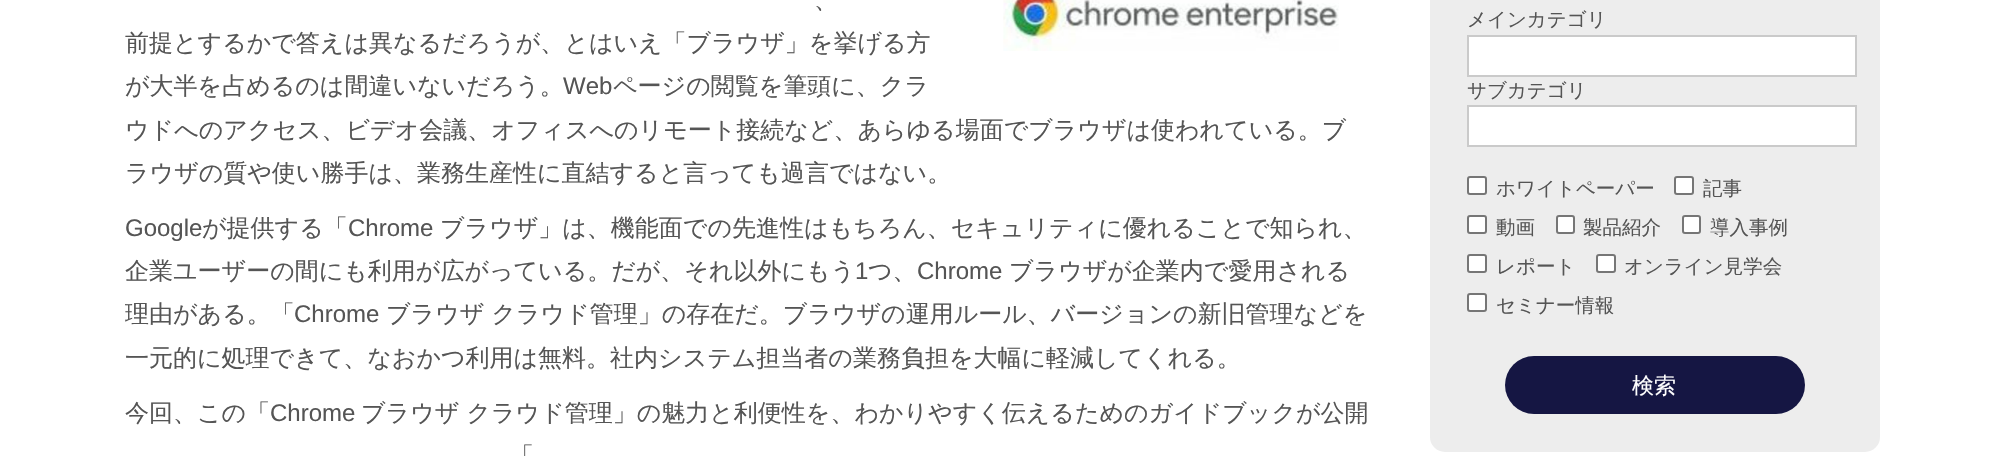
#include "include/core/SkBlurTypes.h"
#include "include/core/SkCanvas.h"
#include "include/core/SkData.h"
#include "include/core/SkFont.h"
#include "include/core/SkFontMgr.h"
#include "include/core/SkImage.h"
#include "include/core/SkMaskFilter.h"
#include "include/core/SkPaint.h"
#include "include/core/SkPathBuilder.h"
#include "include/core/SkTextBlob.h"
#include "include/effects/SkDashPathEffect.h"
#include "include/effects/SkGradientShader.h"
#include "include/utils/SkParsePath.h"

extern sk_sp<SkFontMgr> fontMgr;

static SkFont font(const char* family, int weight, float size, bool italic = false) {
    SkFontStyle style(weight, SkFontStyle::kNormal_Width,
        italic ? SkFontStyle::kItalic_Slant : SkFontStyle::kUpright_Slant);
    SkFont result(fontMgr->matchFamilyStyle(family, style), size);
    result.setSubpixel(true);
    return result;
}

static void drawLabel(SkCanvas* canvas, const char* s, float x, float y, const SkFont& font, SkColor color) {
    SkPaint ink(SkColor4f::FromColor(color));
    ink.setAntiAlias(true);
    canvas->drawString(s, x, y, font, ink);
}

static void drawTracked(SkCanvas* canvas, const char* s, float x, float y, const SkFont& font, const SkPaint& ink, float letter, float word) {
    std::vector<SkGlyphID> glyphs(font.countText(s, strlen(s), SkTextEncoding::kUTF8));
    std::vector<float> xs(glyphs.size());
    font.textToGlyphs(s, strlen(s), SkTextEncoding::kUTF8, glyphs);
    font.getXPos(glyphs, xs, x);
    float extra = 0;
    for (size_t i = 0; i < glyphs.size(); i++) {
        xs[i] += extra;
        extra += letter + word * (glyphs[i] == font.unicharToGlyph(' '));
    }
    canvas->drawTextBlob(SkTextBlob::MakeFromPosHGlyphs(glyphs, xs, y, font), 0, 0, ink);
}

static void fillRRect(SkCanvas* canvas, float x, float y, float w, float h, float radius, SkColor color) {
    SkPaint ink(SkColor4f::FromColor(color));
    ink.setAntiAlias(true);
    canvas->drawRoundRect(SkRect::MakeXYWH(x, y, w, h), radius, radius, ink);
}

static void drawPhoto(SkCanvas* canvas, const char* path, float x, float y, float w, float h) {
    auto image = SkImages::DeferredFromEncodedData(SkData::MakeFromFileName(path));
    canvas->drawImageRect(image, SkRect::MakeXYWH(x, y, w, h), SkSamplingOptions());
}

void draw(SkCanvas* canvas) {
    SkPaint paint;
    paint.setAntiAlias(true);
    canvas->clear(0xFFFFFFFF);
    drawPhoto(canvas, "assets/img1.png", 1003, 0, 336, 51);
    SkFont font1 = font("WenQuanYi Zen Hei", 500, 24);
    paint.setColor(0xFF555555);
    drawTracked(canvas, "、", 814, 8, font1, paint, 0, -1);
    drawLabel(canvas, "前提とするかで答えは異なるだろうが、とはいえ「ブラウザ」を挙げる方", 125, 51, font1, 0xFF555555);
    drawLabel(canvas, "が大半を占めるのは間違いないだろう。", 125, 94, font1, 0xFF555555);
    SkFont font2 = font("Liberation Sans", 400, 24);
    drawLabel(canvas, "Web", 563, 94, font2, 0xFF555555);
    drawLabel(canvas, "ページの閲覧を筆頭に、クラ", 613, 94, font1, 0xFF555555);
    drawLabel(canvas, "ウドへのアクセス、ビデオ会議、オフィスへのリモート接続など、あらゆる場面でブラウザは使われている。ブ", 125, 138, font1, 0xFF555555);
    drawLabel(canvas, "ラウザの質や使い勝手は、業務生産性に直結すると言っても過言ではない。", 125, 181, font1, 0xFF555555);
    drawLabel(canvas, "Google", 125, 236, font2, 0xFF555555);
    drawLabel(canvas, "が提供する「", 202, 236, font1, 0xFF555555);
    drawLabel(canvas, "Chrome", 348, 236, font2, 0xFF555555);
    drawLabel(canvas, "ブラウザ」は、機能面での先進性はもちろん、セキュリティに優れることで知られ、", 440, 236, font1, 0xFF555555);
    drawLabel(canvas, "企業ユーザーの間にも利用が広がっている。だが、それ以外にもう", 125, 279, font1, 0xFF555555);
    drawLabel(canvas, "1", 855, 279, font2, 0xFF555555);
    drawLabel(canvas, "つ、", 868, 279, font1, 0xFF555555);
    drawLabel(canvas, "Chrome", 917, 279, font2, 0xFF555555);
    drawLabel(canvas, "ブラウザが企業内で愛用される", 1009, 279, font1, 0xFF555555);
    drawLabel(canvas, "理由がある。「", 125, 322, font1, 0xFF555555);
    drawLabel(canvas, "Chrome", 294, 322, font2, 0xFF555555);
    drawLabel(canvas, "ブラウザ クラウド管理」の存在だ。ブラウザの運用ルール、バージョンの新旧管理などを", 386, 322, font1, 0xFF555555);
    drawLabel(canvas, "一元的に処理できて、なおかつ利用は無料。社内システム担当者の業務負担を大幅に軽減してくれる。", 125, 366, font1, 0xFF555555);
    drawLabel(canvas, "今回、この「", 125, 421, font1, 0xFF555555);
    drawLabel(canvas, "Chrome", 270, 421, font2, 0xFF555555);
    drawLabel(canvas, "ブラウザ クラウド管理」の魅力と利便性を、わかりやすく伝えるためのガイドブックが公開", 361, 421, font1, 0xFF555555);
    drawLabel(canvas, "「", 510, 464, font1, 0xFF555555);
    fillRRect(canvas, 1430, -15, 450, 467, 15, 0xFFEDEDED);
    SkFont font3 = font("WenQuanYi Zen Hei", 500, 19.5f);
    drawLabel(canvas, "メインカテゴリ", 1467, 26, font3, 0xFF555555);
    paint.setColor(0xFFFFFFFF);
    canvas->drawRect(SkRect::MakeXYWH(1468, 36, 388, 40), paint);
    paint.setStroke(true);
    paint.setStrokeWidth(2);
    paint.setColor(0xFFCACACA);
    canvas->drawRect(SkRect::MakeXYWH(1468, 36, 388, 40), paint);
    drawLabel(canvas, "サブカテゴリ", 1467, 97, font3, 0xFF555555);
    paint.setStroke(false);
    paint.setColor(0xFFFFFFFF);
    canvas->drawRect(SkRect::MakeXYWH(1468, 106, 388, 40), paint);
    paint.setStroke(true);
    paint.setColor(0xFFCACACA);
    canvas->drawRect(SkRect::MakeXYWH(1468, 106, 388, 40), paint);
    paint.setStroke(false);
    paint.setColor(0xFFFFFFFF);
    canvas->drawRoundRect(SkRect::MakeXYWH(1468, 177, 18, 17), 2, 2, paint);
    paint.setStroke(true);
    paint.setColor(0xFF767676);
    canvas->drawRoundRect(SkRect::MakeXYWH(1468, 177, 18, 17), 2, 2, paint);
    drawLabel(canvas, "ホワイトペーパー", 1496, 195, font3, 0xFF555555);
    paint.setStroke(false);
    paint.setColor(0xFFFFFFFF);
    canvas->drawRoundRect(SkRect::MakeXYWH(1675, 177, 18, 17), 2, 2, paint);
    paint.setStroke(true);
    paint.setColor(0xFF767676);
    canvas->drawRoundRect(SkRect::MakeXYWH(1675, 177, 18, 17), 2, 2, paint);
    drawLabel(canvas, "記事", 1703, 195, font3, 0xFF555555);
    paint.setStroke(false);
    paint.setColor(0xFFFFFFFF);
    canvas->drawRoundRect(SkRect::MakeXYWH(1468, 216, 18, 17), 2, 2, paint);
    paint.setStroke(true);
    paint.setColor(0xFF767676);
    canvas->drawRoundRect(SkRect::MakeXYWH(1468, 216, 18, 17), 2, 2, paint);
    drawLabel(canvas, "動画", 1496, 234, font3, 0xFF555555);
    paint.setStroke(false);
    paint.setColor(0xFFFFFFFF);
    canvas->drawRoundRect(SkRect::MakeXYWH(1557, 216, 17, 17), 2, 2, paint);
    paint.setStroke(true);
    paint.setColor(0xFF767676);
    canvas->drawRoundRect(SkRect::MakeXYWH(1557, 216, 17, 17), 2, 2, paint);
    drawLabel(canvas, "製品紹介", 1583, 234, font3, 0xFF555555);
    paint.setStroke(false);
    paint.setColor(0xFFFFFFFF);
    canvas->drawRoundRect(SkRect::MakeXYWH(1683, 216, 17, 17), 2, 2, paint);
    paint.setStroke(true);
    paint.setColor(0xFF767676);
    canvas->drawRoundRect(SkRect::MakeXYWH(1683, 216, 17, 17), 2, 2, paint);
    drawLabel(canvas, "導入事例", 1710, 234, font3, 0xFF555555);
    paint.setStroke(false);
    paint.setColor(0xFFFFFFFF);
    canvas->drawRoundRect(SkRect::MakeXYWH(1468, 255, 18, 17), 2, 2, paint);
    paint.setStroke(true);
    paint.setColor(0xFF767676);
    canvas->drawRoundRect(SkRect::MakeXYWH(1468, 255, 18, 17), 2, 2, paint);
    drawLabel(canvas, "レポート", 1496, 273, font3, 0xFF555555);
    paint.setStroke(false);
    paint.setColor(0xFFFFFFFF);
    canvas->drawRoundRect(SkRect::MakeXYWH(1597, 255, 18, 17), 2, 2, paint);
    paint.setStroke(true);
    paint.setColor(0xFF767676);
    canvas->drawRoundRect(SkRect::MakeXYWH(1597, 255, 18, 17), 2, 2, paint);
    drawLabel(canvas, "オンライン見学会", 1624, 273, font3, 0xFF555555);
    paint.setStroke(false);
    paint.setColor(0xFFFFFFFF);
    canvas->drawRoundRect(SkRect::MakeXYWH(1468, 294, 18, 17), 2, 2, paint);
    paint.setStroke(true);
    paint.setColor(0xFF767676);
    canvas->drawRoundRect(SkRect::MakeXYWH(1468, 294, 18, 17), 2, 2, paint);
    drawLabel(canvas, "セミナー情報", 1496, 312, font3, 0xFF555555);
    fillRRect(canvas, 1505, 356, 300, 58, 29, 0xFF151643);
    SkFont font4 = font("WenQuanYi Zen Hei", 500, 22);
    drawLabel(canvas, "検索", 1632, 393, font4, 0xFFFFFFFF);
}
